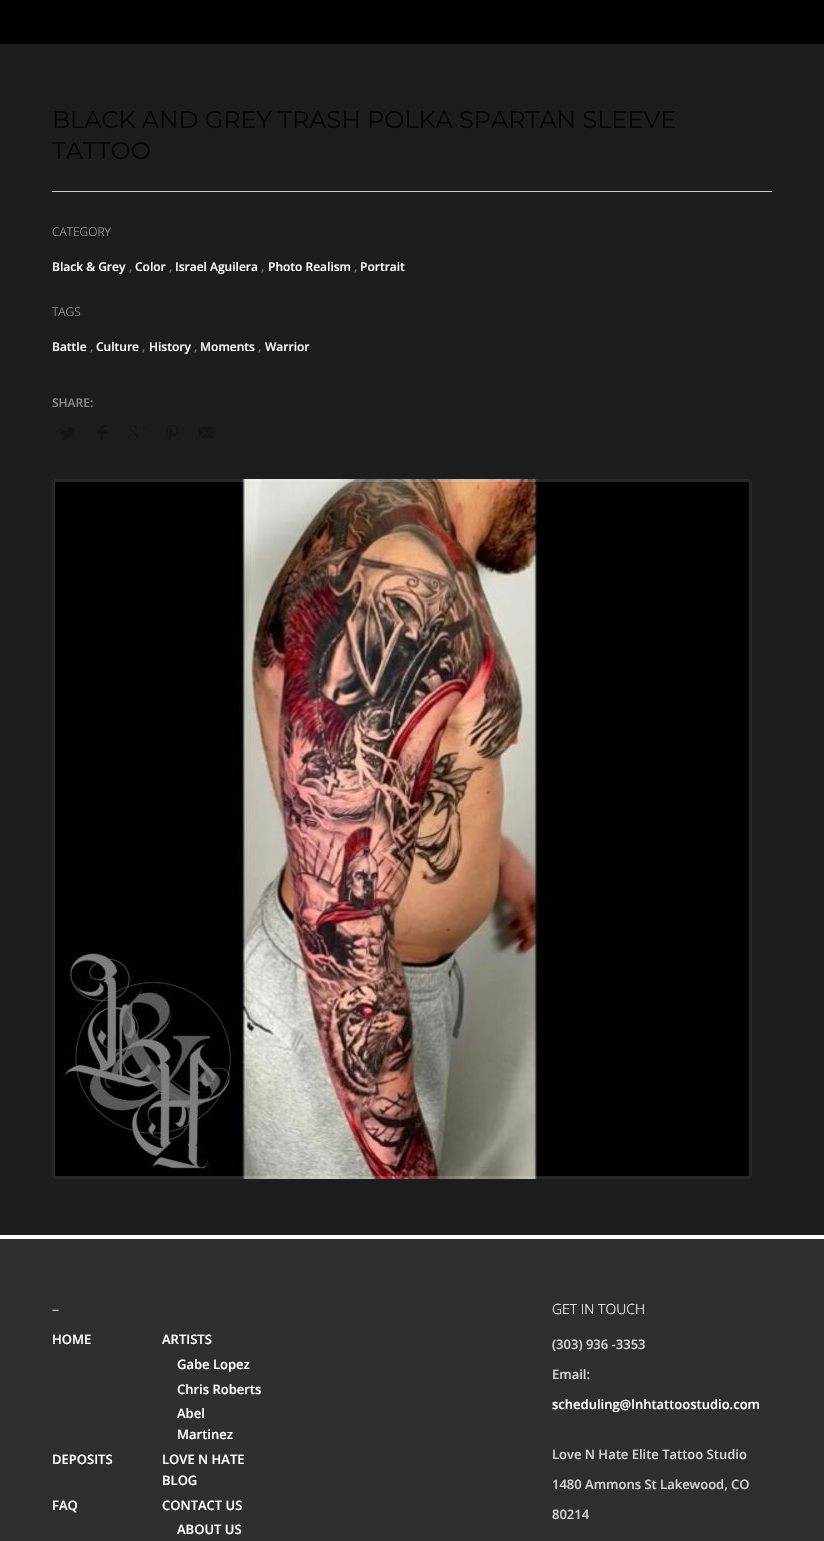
#include "include/core/SkBlurTypes.h"
#include "include/core/SkCanvas.h"
#include "include/core/SkData.h"
#include "include/core/SkFont.h"
#include "include/core/SkFontMgr.h"
#include "include/core/SkImage.h"
#include "include/core/SkMaskFilter.h"
#include "include/core/SkPaint.h"
#include "include/core/SkPathBuilder.h"
#include "include/core/SkTextBlob.h"
#include "include/effects/SkDashPathEffect.h"
#include "include/effects/SkGradientShader.h"
#include "include/utils/SkParsePath.h"

extern sk_sp<SkFontMgr> fontMgr;

static SkFont font(const char* family, int weight, float size, bool italic = false) {
    SkFontStyle style(weight, SkFontStyle::kNormal_Width,
        italic ? SkFontStyle::kItalic_Slant : SkFontStyle::kUpright_Slant);
    SkFont result(fontMgr->matchFamilyStyle(family, style), size);
    result.setSubpixel(true);
    return result;
}

static void drawLabel(SkCanvas* canvas, const char* s, float x, float y, const SkFont& font, SkColor color) {
    SkPaint ink(SkColor4f::FromColor(color));
    ink.setAntiAlias(true);
    canvas->drawString(s, x, y, font, ink);
}

static void fillRect(SkCanvas* canvas, float x, float y, float w, float h, SkColor color) {
    SkPaint ink(SkColor4f::FromColor(color));
    ink.setAntiAlias(true);
    canvas->drawRect(SkRect::MakeXYWH(x, y, w, h), ink);
}

static void drawPhoto(SkCanvas* canvas, const char* path, float x, float y, float w, float h) {
    auto image = SkImages::DeferredFromEncodedData(SkData::MakeFromFileName(path));
    canvas->drawImageRect(image, SkRect::MakeXYWH(x, y, w, h), SkSamplingOptions());
}

void draw(SkCanvas* canvas) {
    SkPaint paint;
    paint.setAntiAlias(true);
    canvas->clear(0xFF1C1D1F);
    fillRect(canvas, 0, 0, 824, 44, 0xFF000000);
    fillRect(canvas, 52, 191, 720, 1, 0xFFCBCBCB);
    SkFont font1 = font("Montserrat", 400, 24);
    drawLabel(canvas, "BLACK AND GREY TRASH POLKA SPARTAN SLEEVE", 52, 128, font1, 0xFF050505);
    drawLabel(canvas, "TATTOO", 52, 159, font1, 0xFF050505);
    SkFont font2 = font("Open Sans", 300, 12);
    drawLabel(canvas, "CATEGORY", 52, 236, font2, 0xFFABABAB);
    SkFont font3 = font("Open Sans", 600, 12);
    drawLabel(canvas, "Black & Grey", 52, 271, font3, 0xFFFFFFFF);
    drawLabel(canvas, ",", 129, 271, font3, 0xFF787878);
    drawLabel(canvas, "Color", 135, 271, font3, 0xFFFFFFFF);
    drawLabel(canvas, ",", 169, 271, font3, 0xFF787878);
    drawLabel(canvas, "Israel Aguilera", 175, 271, font3, 0xFFFFFFFF);
    drawLabel(canvas, ",", 261, 271, font3, 0xFF787878);
    drawLabel(canvas, "Photo Realism", 268, 271, font3, 0xFFFFFFFF);
    drawLabel(canvas, ",", 354, 271, font3, 0xFF787878);
    drawLabel(canvas, "Portrait", 360, 271, font3, 0xFFFFFFFF);
    drawLabel(canvas, "TAGS", 52, 316, font2, 0xFFABABAB);
    drawLabel(canvas, "Battle", 52, 351, font3, 0xFFFFFFFF);
    drawLabel(canvas, ",", 90, 351, font3, 0xFF787878);
    drawLabel(canvas, "Culture", 96, 351, font3, 0xFFFFFFFF);
    drawLabel(canvas, ",", 142, 351, font3, 0xFF787878);
    drawLabel(canvas, "History", 149, 351, font3, 0xFFFFFFFF);
    drawLabel(canvas, ",", 194, 351, font3, 0xFF787878);
    drawLabel(canvas, "Moments", 200, 351, font3, 0xFFFFFFFF);
    drawLabel(canvas, ",", 258, 351, font3, 0xFF787878);
    drawLabel(canvas, "Warrior", 265, 351, font3, 0xFFFFFFFF);
    drawLabel(canvas, "SHARE:", 52, 407, font3, 0xFF8A8A8A);
    drawPhoto(canvas, "assets/img1.png", 60, 427, 14, 13);
    drawPhoto(canvas, "assets/img2.png", 98, 425, 9, 16);
    drawPhoto(canvas, "assets/img3.png", 128, 425, 18, 15);
    drawPhoto(canvas, "assets/img4.png", 166, 425, 12, 15);
    drawPhoto(canvas, "assets/img5.png", 199, 427, 17, 11);
    drawPhoto(canvas, "assets/img6.png", 52, 479, 700, 700);
    paint.setStroke(true);
    paint.setStrokeWidth(3);
    paint.setColor(0x26FFFFFF);
    canvas->drawRoundRect(SkRect::MakeXYWH(53.5f, 480.5f, 697, 697), 1.5f, 1.5f, paint);
    fillRect(canvas, 0, 1239, 824, 302, 0xFF2F2F2F);
    fillRect(canvas, 0, 1235, 824, 4, 0xFFFFFFFF);
    SkFont font4 = font("Open Sans", 300, 14);
    drawLabel(canvas, "–", 52, 1314, font4, 0xFFFFFFFF);
    SkFont font5 = font("Open Sans", 600, 13);
    drawLabel(canvas, "HOME", 52, 1344, font5, 0xFFFFFFFF);
    drawLabel(canvas, "ARTISTS", 162, 1344, font5, 0xFFFFFFFF);
    drawLabel(canvas, "Gabe Lopez", 177, 1369, font5, 0xFFFFFFFF);
    drawLabel(canvas, "Chris Roberts", 177, 1394, font5, 0xFFFFFFFF);
    drawLabel(canvas, "Abel", 177, 1418, font5, 0xFFFFFFFF);
    drawLabel(canvas, "Martinez", 177, 1439, font5, 0xFFFFFFFF);
    drawLabel(canvas, "DEPOSITS", 52, 1464, font5, 0xFFFFFFFF);
    drawLabel(canvas, "LOVE N HATE", 162, 1464, font5, 0xFFFFFFFF);
    drawLabel(canvas, "BLOG", 162, 1485, font5, 0xFFFFFFFF);
    drawLabel(canvas, "FAQ", 52, 1510, font5, 0xFFFFFFFF);
    drawLabel(canvas, "CONTACT US", 162, 1510, font5, 0xFFFFFFFF);
    drawLabel(canvas, "ABOUT US", 177, 1534, font5, 0xFFFFFFFF);
    drawLabel(canvas, "GET IN TOUCH", 552, 1314, font4, 0xFFFFFFFF);
    drawLabel(canvas, "(303) 936 -3353", 552, 1349, font5, 0xFFD5D5D5);
    drawLabel(canvas, "Email:", 552, 1379, font5, 0xFFD5D5D5);
    drawLabel(canvas, "scheduling@lnhtattoostudio.com", 552, 1409, font5, 0xFFFFFFFF);
    drawLabel(canvas, "Love N Hate Elite Tattoo Studio", 552, 1459, font5, 0xFFD5D5D5);
    drawLabel(canvas, "1480 Ammons St Lakewood, CO", 552, 1489, font5, 0xFFD5D5D5);
    drawLabel(canvas, "80214", 552, 1519, font5, 0xFFD5D5D5);
}
